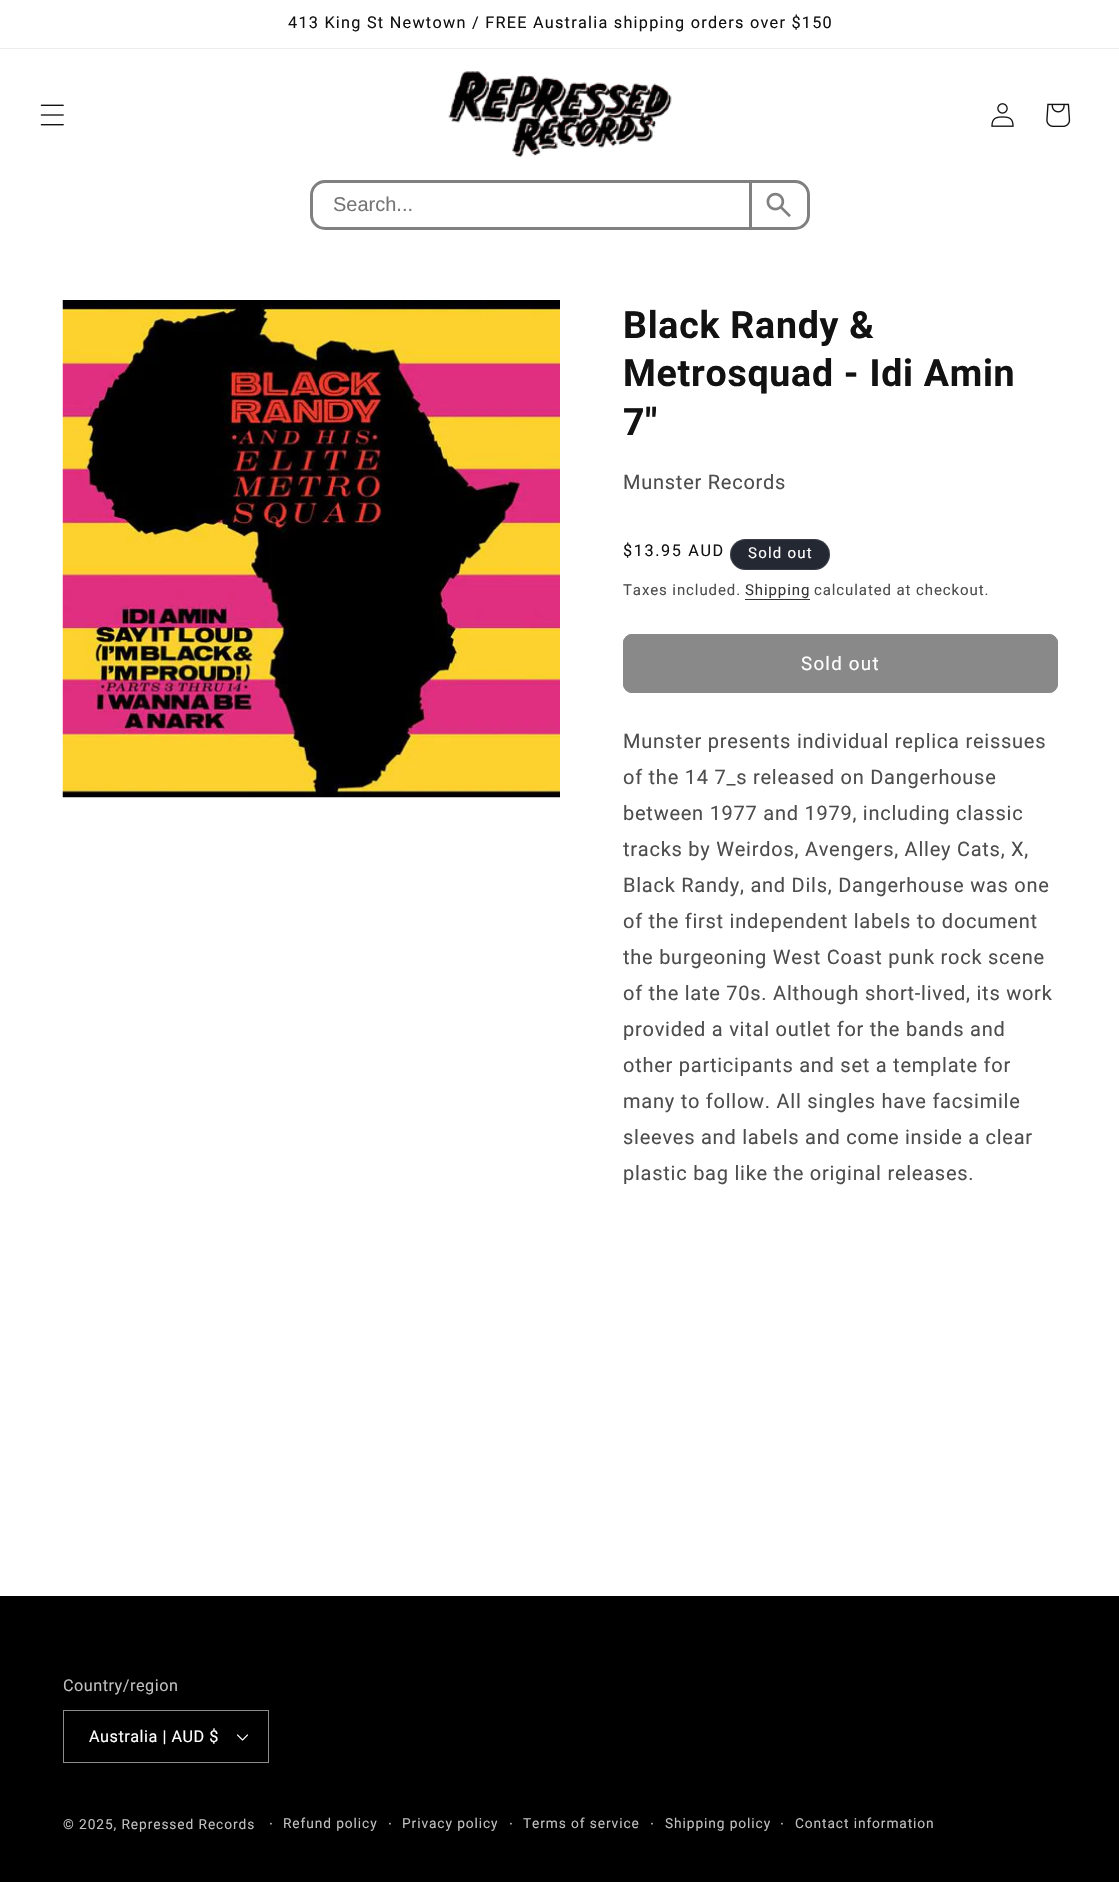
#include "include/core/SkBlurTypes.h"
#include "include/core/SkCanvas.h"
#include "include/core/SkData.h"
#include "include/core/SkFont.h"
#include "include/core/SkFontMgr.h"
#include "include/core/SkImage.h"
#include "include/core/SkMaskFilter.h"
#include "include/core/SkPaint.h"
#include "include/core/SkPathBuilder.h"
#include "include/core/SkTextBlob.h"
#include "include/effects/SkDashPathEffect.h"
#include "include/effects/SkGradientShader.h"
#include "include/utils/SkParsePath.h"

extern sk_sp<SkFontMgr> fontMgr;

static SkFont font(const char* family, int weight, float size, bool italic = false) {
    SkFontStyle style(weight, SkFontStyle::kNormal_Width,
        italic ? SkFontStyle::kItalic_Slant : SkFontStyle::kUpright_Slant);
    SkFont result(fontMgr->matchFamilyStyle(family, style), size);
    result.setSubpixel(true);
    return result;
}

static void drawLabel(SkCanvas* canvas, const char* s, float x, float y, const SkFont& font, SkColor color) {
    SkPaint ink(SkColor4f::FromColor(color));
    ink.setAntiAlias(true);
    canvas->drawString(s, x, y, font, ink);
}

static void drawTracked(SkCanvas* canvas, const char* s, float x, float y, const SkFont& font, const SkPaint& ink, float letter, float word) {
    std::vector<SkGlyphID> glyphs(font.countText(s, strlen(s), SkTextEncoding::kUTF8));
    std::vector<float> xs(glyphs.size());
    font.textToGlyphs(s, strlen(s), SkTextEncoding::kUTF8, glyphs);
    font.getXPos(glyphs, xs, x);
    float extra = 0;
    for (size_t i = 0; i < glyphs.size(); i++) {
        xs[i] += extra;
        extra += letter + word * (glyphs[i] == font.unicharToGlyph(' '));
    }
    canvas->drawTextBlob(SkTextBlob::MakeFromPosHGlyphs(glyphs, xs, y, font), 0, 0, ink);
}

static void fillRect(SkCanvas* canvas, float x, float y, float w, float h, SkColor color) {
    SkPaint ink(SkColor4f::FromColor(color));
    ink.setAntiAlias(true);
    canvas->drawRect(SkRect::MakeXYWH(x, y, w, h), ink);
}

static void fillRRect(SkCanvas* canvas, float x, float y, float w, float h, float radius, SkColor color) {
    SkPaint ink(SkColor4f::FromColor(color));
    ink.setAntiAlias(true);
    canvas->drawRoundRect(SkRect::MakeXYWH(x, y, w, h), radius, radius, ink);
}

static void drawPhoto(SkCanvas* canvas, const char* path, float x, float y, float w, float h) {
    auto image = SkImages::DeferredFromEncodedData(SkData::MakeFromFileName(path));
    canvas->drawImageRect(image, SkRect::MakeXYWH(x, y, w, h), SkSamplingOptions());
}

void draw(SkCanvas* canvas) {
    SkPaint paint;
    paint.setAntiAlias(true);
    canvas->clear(0xFFFFFFFF);
    fillRect(canvas, 0, 48, 1119, 1, 0xFFECECEC);
    SkFont font1 = font("Roboto", 400, 16.25f);
    paint.setColor(0xFF121212);
    drawTracked(canvas, "413 King St Newtown / FREE Australia shipping orders over $150", 288, 28, font1, paint, 1.25f, 0);
    drawPhoto(canvas, "assets/img1.png", 40, 104, 24, 22);
    drawPhoto(canvas, "assets/img2.png", 448, 71, 224, 87);
    drawPhoto(canvas, "assets/img3.png", 991, 103, 23, 24);
    drawPhoto(canvas, "assets/img4.png", 1046, 103, 25, 24);
    paint.setStroke(true);
    paint.setStrokeWidth(3);
    paint.setColor(0xFF808080);
    canvas->drawRoundRect(SkRect::MakeXYWH(311.5f, 181.5f, 497, 47), 13.5f, 13.5f, paint);
    fillRect(canvas, 749, 183, 3, 45, 0xFF808080);
    SkFont font2 = font("Liberation Sans", 400, 20);
    drawLabel(canvas, "Search...", 333, 211, font2, 0xFF757575);
    drawPhoto(canvas, "assets/img5.png", 766, 192, 25, 25);
    drawPhoto(canvas, "assets/img6.png", 62, 300, 498, 498);
    SkFont font3 = font("Roboto", 700, 37.5f);
    paint.setStroke(false);
    paint.setColor(0xFF121212);
    drawTracked(canvas, "Black Randy &", 623, 338, font3, paint, 0.75f, 0);
    drawTracked(canvas, "Metrosquad - Idi Amin", 623, 386, font3, paint, 0.75f, 0);
    drawTracked(canvas, "7\"", 623, 435, font3, paint, 0.75f, 0);
    SkFont font4 = font("Roboto", 400, 20);
    paint.setColor(0xFF4D4D4D);
    drawTracked(canvas, "Munster Records", 623, 489, font4, paint, 0.75f, 0);
    paint.setColor(0xFF121212);
    drawTracked(canvas, "$13.95 AUD", 623, 556, font1, paint, 1.6f, 0);
    fillRRect(canvas, 730, 539, 100, 31, 15.5f, 0xFF242833);
    paint.setStroke(true);
    paint.setStrokeWidth(1);
    paint.setColor(0x1AFFFFFF);
    canvas->drawRoundRect(SkRect::MakeXYWH(730.5f, 539.5f, 99, 30), 15, 15, paint);
    SkFont font5 = font("Roboto", 400, 15);
    paint.setStroke(false);
    paint.setColor(0xFFFFFFFF);
    drawTracked(canvas, "Sold out", 748, 558, font5, paint, 1.25f, 0);
    paint.setColor(0xFF4D4D4D);
    drawTracked(canvas, "Taxes included.", 623, 595, font5, paint, 0.9f, 0);
    paint.setColor(0xFF363636);
    drawTracked(canvas, "Shipping", 745, 595, font5, paint, 0.9f, 0);
    fillRect(canvas, 745, 599, 65, 1, 0xFF363636);
    paint.setColor(0xFF4D4D4D);
    drawTracked(canvas, "calculated at checkout.", 814, 595, font5, paint, 0.9f, 0);
    fillRRect(canvas, 623, 634, 435, 59, 9, 0xFF898989);
    paint.setStroke(true);
    paint.setColor(0xFF898989);
    canvas->drawRoundRect(SkRect::MakeXYWH(623.5f, 634.5f, 434, 58), 8.5f, 8.5f, paint);
    SkFont font6 = font("Roboto", 400, 18.75f);
    paint.setStroke(false);
    paint.setColor(0xFFFFFFFF);
    drawTracked(canvas, "Sold out", 801, 670, font6, paint, 1.25f, 0);
    paint.setColor(0xFF4D4D4D);
    drawTracked(canvas, "Munster presents individual replica reissues", 623, 748, font4, paint, 0.75f, 0);
    drawTracked(canvas, "of the 14 7_s released on Dangerhouse", 623, 784, font4, paint, 0.75f, 0);
    drawTracked(canvas, "between 1977 and 1979, including classic", 623, 820, font4, paint, 0.75f, 0);
    drawTracked(canvas, "tracks by Weirdos, Avengers, Alley Cats, X,", 623, 856, font4, paint, 0.75f, 0);
    drawTracked(canvas, "Black Randy, and Dils, Dangerhouse was one", 623, 892, font4, paint, 0.75f, 0);
    drawTracked(canvas, "of the first independent labels to document", 623, 928, font4, paint, 0.75f, 0);
    drawTracked(canvas, "the burgeoning West Coast punk rock scene", 623, 964, font4, paint, 0.75f, 0);
    drawTracked(canvas, "of the late 70s. Although short-lived, its work", 623, 1000, font4, paint, 0.75f, 0);
    drawTracked(canvas, "provided a vital outlet for the bands and", 623, 1036, font4, paint, 0.75f, 0);
    drawTracked(canvas, "other participants and set a template for", 623, 1072, font4, paint, 0.75f, 0);
    drawTracked(canvas, "many to follow. All singles have facsimile", 623, 1108, font4, paint, 0.75f, 0);
    drawTracked(canvas, "sleeves and labels and come inside a clear", 623, 1144, font4, paint, 0.75f, 0);
    drawTracked(canvas, "plastic bag like the original releases.", 623, 1180, font4, paint, 0.75f, 0);
    fillRect(canvas, 0, 1596, 1119, 286, 0xFF000000);
    paint.setColor(0xFFBFBFBF);
    drawTracked(canvas, "Country/region", 63, 1691, font1, paint, 0.5f, 0);
    drawPhoto(canvas, "assets/img7.png", 237, 1734, 11, 7);
    paint.setStroke(true);
    paint.setColor(0xFF8C8C8C);
    canvas->drawRect(SkRect::MakeXYWH(63.5f, 1710.5f, 205, 52), paint);
    paint.setStroke(false);
    paint.setColor(0xFFFFFFFF);
    drawTracked(canvas, "Australia | AUD $", 89, 1742, font1, paint, 0.5f, 0);
    SkFont font7 = font("Roboto", 400, 13.75f);
    paint.setColor(0xFFBFBFBF);
    drawTracked(canvas, "© 2025, Repressed Records", 63, 1829, font7, paint, 0.9f, 0);
    drawTracked(canvas, "·", 269, 1829, font5, paint, 0.9f, 0);
    drawTracked(canvas, "Refund policy", 283, 1828, font7, paint, 0.9f, 0);
    drawTracked(canvas, "·", 388, 1829, font5, paint, 0.9f, 0);
    drawTracked(canvas, "Privacy policy", 402, 1828, font7, paint, 0.9f, 0);
    drawTracked(canvas, "·", 509, 1829, font5, paint, 0.9f, 0);
    drawTracked(canvas, "Terms of service", 523, 1828, font7, paint, 0.9f, 0);
    drawTracked(canvas, "·", 650, 1829, font5, paint, 0.9f, 0);
    drawTracked(canvas, "Shipping policy", 665, 1828, font7, paint, 0.9f, 0);
    drawTracked(canvas, "·", 780, 1829, font5, paint, 0.9f, 0);
    drawTracked(canvas, "Contact information", 795, 1828, font7, paint, 0.9f, 0);
}
